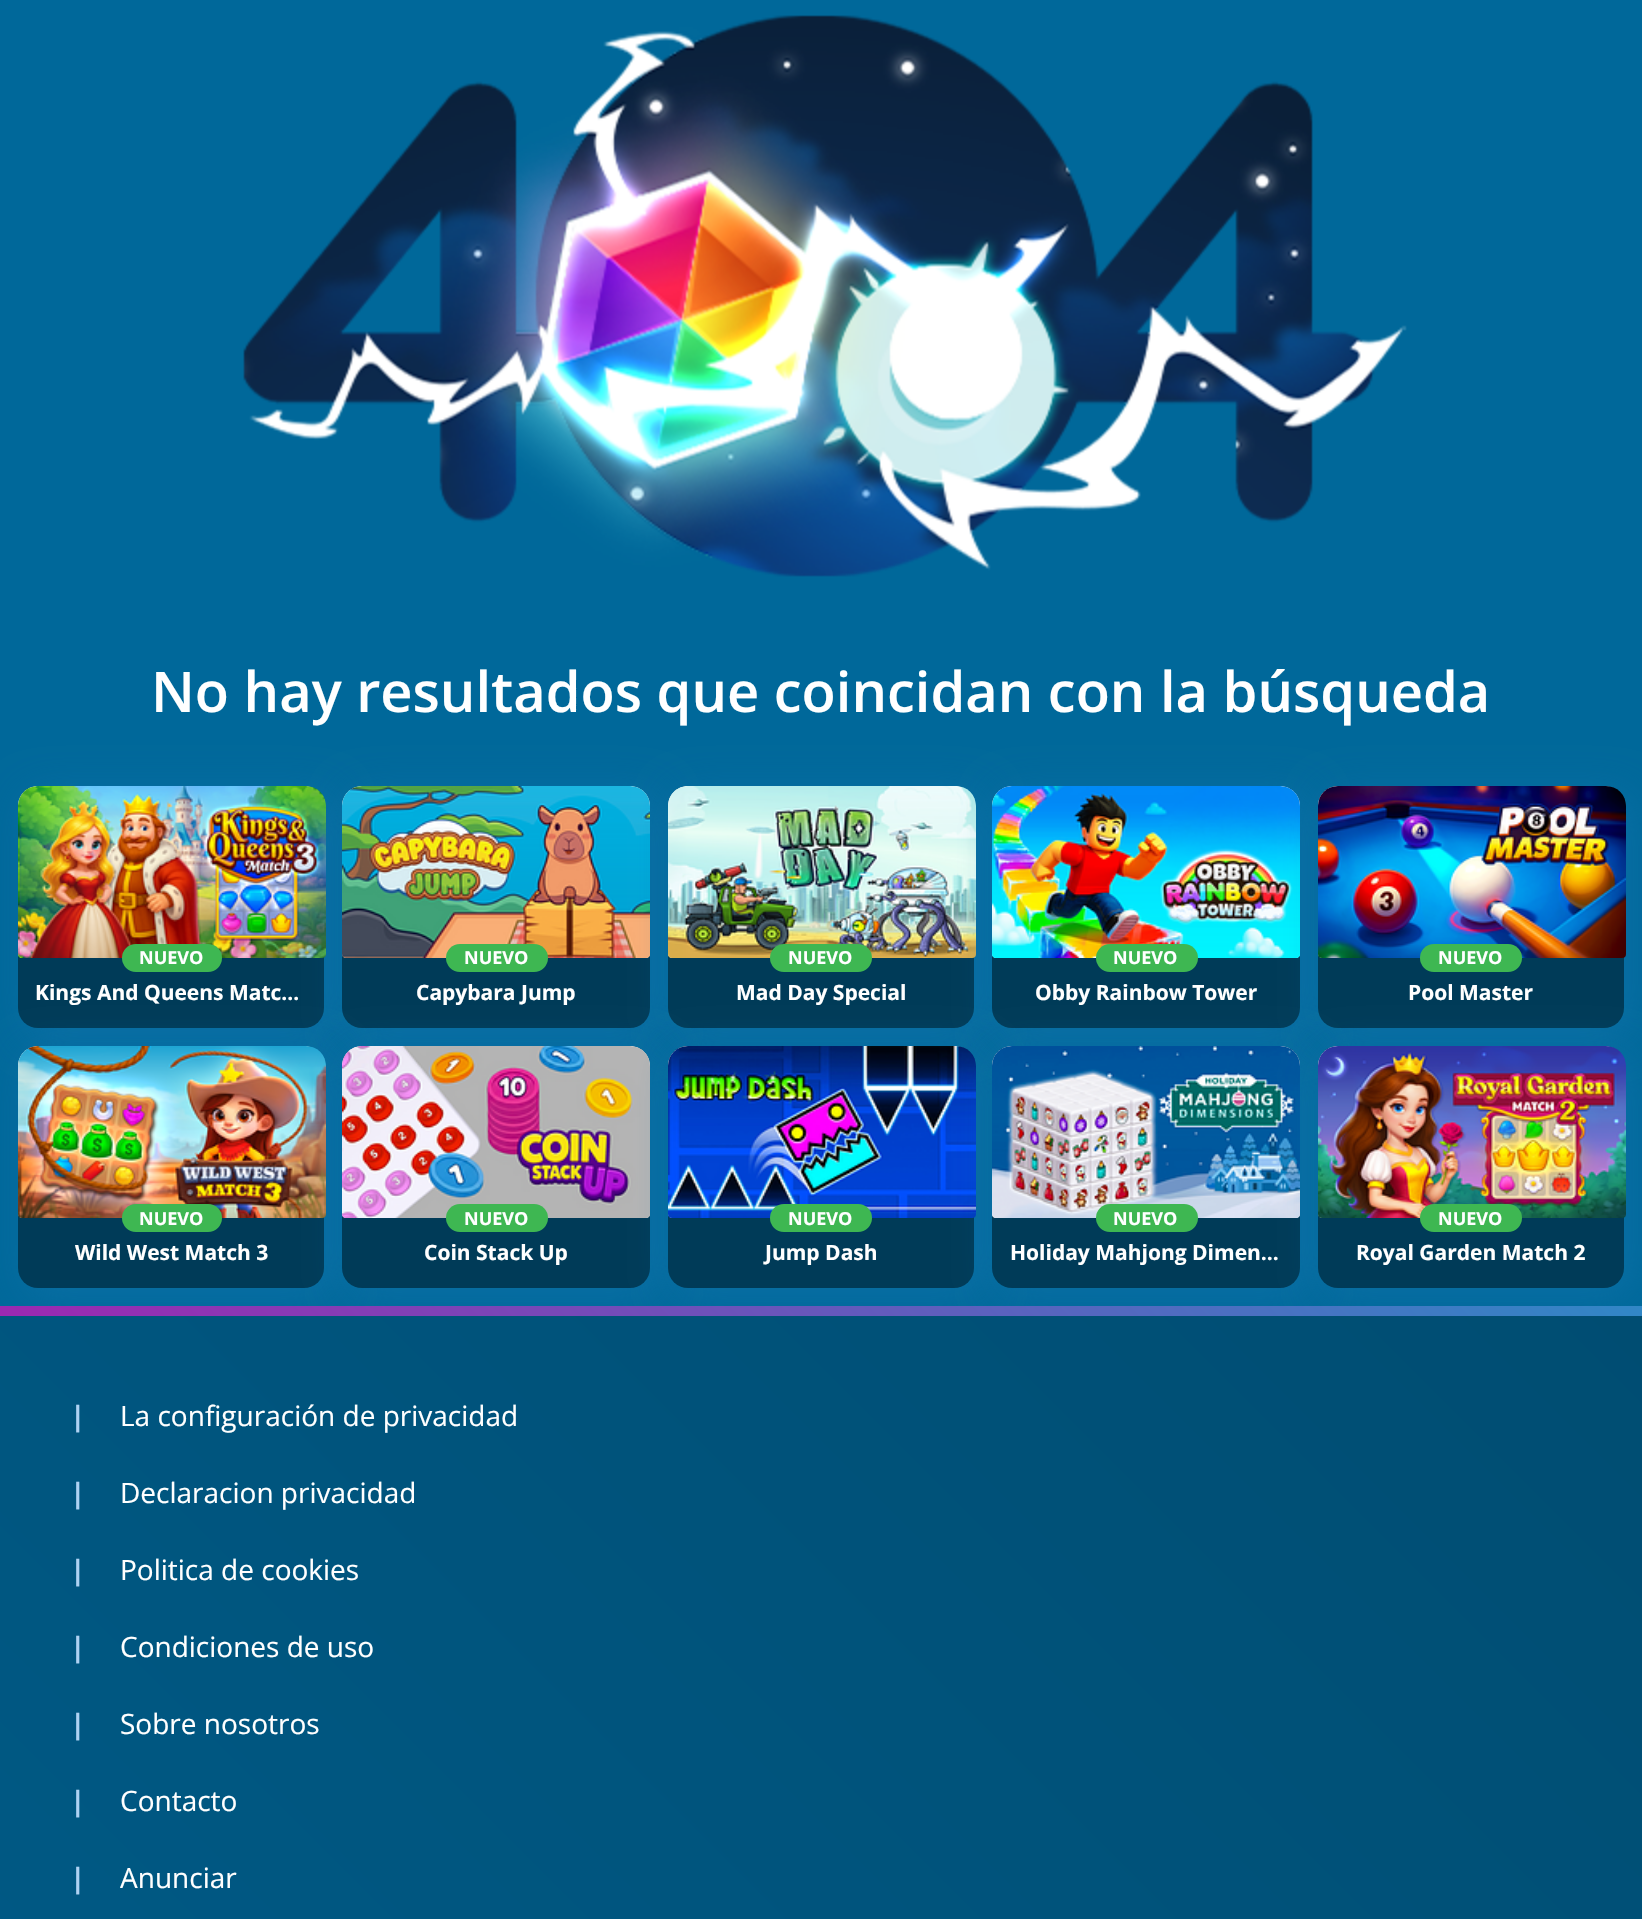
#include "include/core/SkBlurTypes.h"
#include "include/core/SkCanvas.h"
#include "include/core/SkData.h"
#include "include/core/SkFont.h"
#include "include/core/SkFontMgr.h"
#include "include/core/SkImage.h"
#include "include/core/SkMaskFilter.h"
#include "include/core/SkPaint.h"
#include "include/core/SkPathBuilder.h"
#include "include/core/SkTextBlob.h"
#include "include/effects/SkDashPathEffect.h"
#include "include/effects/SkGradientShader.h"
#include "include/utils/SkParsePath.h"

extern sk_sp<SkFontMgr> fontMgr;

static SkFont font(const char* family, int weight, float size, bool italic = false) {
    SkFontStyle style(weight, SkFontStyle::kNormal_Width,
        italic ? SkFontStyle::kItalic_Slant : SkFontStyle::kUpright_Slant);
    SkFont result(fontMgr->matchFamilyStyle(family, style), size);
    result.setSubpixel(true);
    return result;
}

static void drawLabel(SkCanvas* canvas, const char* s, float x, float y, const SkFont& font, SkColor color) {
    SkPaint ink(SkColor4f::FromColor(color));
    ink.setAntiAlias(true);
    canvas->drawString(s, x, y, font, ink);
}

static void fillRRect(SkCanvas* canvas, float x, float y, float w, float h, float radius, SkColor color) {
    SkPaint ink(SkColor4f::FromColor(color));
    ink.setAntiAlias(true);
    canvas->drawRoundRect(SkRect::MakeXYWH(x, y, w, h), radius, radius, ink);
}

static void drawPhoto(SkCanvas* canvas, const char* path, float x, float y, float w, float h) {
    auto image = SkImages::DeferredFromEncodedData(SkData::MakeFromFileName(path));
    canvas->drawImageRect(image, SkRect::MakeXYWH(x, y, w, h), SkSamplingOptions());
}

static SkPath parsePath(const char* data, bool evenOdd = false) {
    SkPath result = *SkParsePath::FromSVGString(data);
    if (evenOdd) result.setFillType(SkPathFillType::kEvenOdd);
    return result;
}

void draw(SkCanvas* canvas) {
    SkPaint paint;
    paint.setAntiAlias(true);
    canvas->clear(0xFF00689A);
    drawPhoto(canvas, "assets/img1.png", 243, 15, 1164, 562);
    SkFont font1 = font("Open Sans", 600, 56);
    drawLabel(canvas, "No hay resultados que coincidan con la búsqueda", 151, 712, font1, 0xFFFFFFFF);
    paint.setColor(0x801276AF);
    paint.setMaskFilter(SkMaskFilter::MakeBlur(kNormal_SkBlurStyle, 20));
    canvas->drawRoundRect(SkRect::MakeXYWH(26, 794, 306, 242), 20, 20, paint);
    paint.setMaskFilter(nullptr);
    fillRRect(canvas, 18, 786, 306, 242, 20, 0xFF003B58);
    paint.setColor(0xFFFAFAFA);
    canvas->drawPath(parsePath("M38 786H304C315 786 324 795 324 806V954C324 956 322 958 320 958H22C20 958 18 956 18 954V806C18 795 27 786 38 786Z"), paint);
    drawPhoto(canvas, "assets/img2.png", 18, 786, 308, 172);
    fillRRect(canvas, 122, 944, 100, 28, 14, 0xFF3EB752);
    SkFont font2 = font("Open Sans", 700, 18);
    drawLabel(canvas, "NUEVO", 139, 964, font2, 0xFFFFFFFF);
    SkFont font3 = font("Open Sans", 700, 21);
    drawLabel(canvas, "Kings And Queens Matc…", 35, 1000, font3, 0xFFFFFFFF);
    paint.setColor(0x801276AF);
    paint.setMaskFilter(SkMaskFilter::MakeBlur(kNormal_SkBlurStyle, 20));
    canvas->drawRoundRect(SkRect::MakeXYWH(350, 794, 308, 242), 20, 20, paint);
    paint.setMaskFilter(nullptr);
    fillRRect(canvas, 342, 786, 308, 242, 20, 0xFF003B58);
    paint.setColor(0xFFFAFAFA);
    canvas->drawPath(parsePath("M362 786H630C641 786 650 795 650 806V954C650 956 648 958 646 958H346C344 958 342 956 342 954V806C342 795 351 786 362 786Z"), paint);
    drawPhoto(canvas, "assets/img3.png", 342, 786, 308, 172);
    fillRRect(canvas, 446, 944, 102, 28, 14, 0xFF3EB752);
    drawLabel(canvas, "NUEVO", 464, 964, font2, 0xFFFFFFFF);
    drawLabel(canvas, "Capybara Jump", 416, 1000, font3, 0xFFFFFFFF);
    paint.setColor(0x801276AF);
    paint.setMaskFilter(SkMaskFilter::MakeBlur(kNormal_SkBlurStyle, 20));
    canvas->drawRoundRect(SkRect::MakeXYWH(676, 794, 306, 242), 20, 20, paint);
    paint.setMaskFilter(nullptr);
    fillRRect(canvas, 668, 786, 306, 242, 20, 0xFF003B58);
    paint.setColor(0xFFFAFAFA);
    canvas->drawPath(parsePath("M688 786H954C965 786 974 795 974 806V954C974 956 972 958 970 958H672C670 958 668 956 668 954V806C668 795 677 786 688 786Z"), paint);
    drawPhoto(canvas, "assets/img4.png", 668, 786, 308, 172);
    fillRRect(canvas, 770, 944, 102, 28, 14, 0xFF3EB752);
    drawLabel(canvas, "NUEVO", 788, 964, font2, 0xFFFFFFFF);
    drawLabel(canvas, "Mad Day Special", 736, 1000, font3, 0xFFFFFFFF);
    paint.setColor(0x801276AF);
    paint.setMaskFilter(SkMaskFilter::MakeBlur(kNormal_SkBlurStyle, 20));
    canvas->drawRoundRect(SkRect::MakeXYWH(1000, 794, 308, 242), 20, 20, paint);
    paint.setMaskFilter(nullptr);
    fillRRect(canvas, 992, 786, 308, 242, 20, 0xFF003B58);
    paint.setColor(0xFFFAFAFA);
    canvas->drawPath(parsePath("M1012 786H1280C1291 786 1300 795 1300 806V954C1300 956 1298 958 1296 958H996C994 958 992 956 992 954V806C992 795 1001 786 1012 786Z"), paint);
    drawPhoto(canvas, "assets/img5.png", 992, 786, 308, 172);
    fillRRect(canvas, 1096, 944, 102, 28, 14, 0xFF3EB752);
    drawLabel(canvas, "NUEVO", 1113, 964, font2, 0xFFFFFFFF);
    drawLabel(canvas, "Obby Rainbow Tower", 1035, 1000, font3, 0xFFFFFFFF);
    paint.setColor(0x801276AF);
    paint.setMaskFilter(SkMaskFilter::MakeBlur(kNormal_SkBlurStyle, 20));
    canvas->drawRoundRect(SkRect::MakeXYWH(1326, 794, 306, 242), 20, 20, paint);
    paint.setMaskFilter(nullptr);
    fillRRect(canvas, 1318, 786, 306, 242, 20, 0xFF003B58);
    paint.setColor(0xFFFAFAFA);
    canvas->drawPath(parsePath("M1338 786H1604C1615 786 1624 795 1624 806V954C1624 956 1622 958 1620 958H1322C1320 958 1318 956 1318 954V806C1318 795 1327 786 1338 786Z"), paint);
    drawPhoto(canvas, "assets/img6.png", 1318, 786, 308, 172);
    fillRRect(canvas, 1420, 944, 102, 28, 14, 0xFF3EB752);
    drawLabel(canvas, "NUEVO", 1438, 964, font2, 0xFFFFFFFF);
    drawLabel(canvas, "Pool Master", 1408, 1000, font3, 0xFFFFFFFF);
    paint.setColor(0x801276AF);
    paint.setMaskFilter(SkMaskFilter::MakeBlur(kNormal_SkBlurStyle, 20));
    canvas->drawRoundRect(SkRect::MakeXYWH(26, 1054, 306, 242), 20, 20, paint);
    paint.setMaskFilter(nullptr);
    fillRRect(canvas, 18, 1046, 306, 242, 20, 0xFF003B58);
    paint.setColor(0xFFFAFAFA);
    canvas->drawPath(parsePath("M38 1046H304C315 1046 324 1055 324 1066V1214C324 1216 322 1218 320 1218H22C20 1218 18 1216 18 1214V1066C18 1055 27 1046 38 1046Z"), paint);
    drawPhoto(canvas, "assets/img7.png", 18, 1046, 308, 172);
    fillRRect(canvas, 122, 1204, 100, 28, 14, 0xFF3EB752);
    drawLabel(canvas, "NUEVO", 139, 1225, font2, 0xFFFFFFFF);
    drawLabel(canvas, "Wild West Match 3", 75, 1260, font3, 0xFFFFFFFF);
    paint.setColor(0x801276AF);
    paint.setMaskFilter(SkMaskFilter::MakeBlur(kNormal_SkBlurStyle, 20));
    canvas->drawRoundRect(SkRect::MakeXYWH(350, 1054, 308, 242), 20, 20, paint);
    paint.setMaskFilter(nullptr);
    fillRRect(canvas, 342, 1046, 308, 242, 20, 0xFF003B58);
    paint.setColor(0xFFFAFAFA);
    canvas->drawPath(parsePath("M362 1046H630C641 1046 650 1055 650 1066V1214C650 1216 648 1218 646 1218H346C344 1218 342 1216 342 1214V1066C342 1055 351 1046 362 1046Z"), paint);
    drawPhoto(canvas, "assets/img8.png", 342, 1046, 308, 172);
    fillRRect(canvas, 446, 1204, 102, 28, 14, 0xFF3EB752);
    drawLabel(canvas, "NUEVO", 464, 1225, font2, 0xFFFFFFFF);
    drawLabel(canvas, "Coin Stack Up", 424, 1260, font3, 0xFFFFFFFF);
    paint.setColor(0x801276AF);
    paint.setMaskFilter(SkMaskFilter::MakeBlur(kNormal_SkBlurStyle, 20));
    canvas->drawRoundRect(SkRect::MakeXYWH(676, 1054, 306, 242), 20, 20, paint);
    paint.setMaskFilter(nullptr);
    fillRRect(canvas, 668, 1046, 306, 242, 20, 0xFF003B58);
    paint.setColor(0xFFFAFAFA);
    canvas->drawPath(parsePath("M688 1046H954C965 1046 974 1055 974 1066V1214C974 1216 972 1218 970 1218H672C670 1218 668 1216 668 1214V1066C668 1055 677 1046 688 1046Z"), paint);
    drawPhoto(canvas, "assets/img9.png", 668, 1046, 308, 172);
    fillRRect(canvas, 770, 1204, 102, 28, 14, 0xFF3EB752);
    drawLabel(canvas, "NUEVO", 788, 1225, font2, 0xFFFFFFFF);
    drawLabel(canvas, "Jump Dash", 765, 1260, font3, 0xFFFFFFFF);
    paint.setColor(0x801276AF);
    paint.setMaskFilter(SkMaskFilter::MakeBlur(kNormal_SkBlurStyle, 20));
    canvas->drawRoundRect(SkRect::MakeXYWH(1000, 1054, 308, 242), 20, 20, paint);
    paint.setMaskFilter(nullptr);
    fillRRect(canvas, 992, 1046, 308, 242, 20, 0xFF003B58);
    paint.setColor(0xFFFAFAFA);
    canvas->drawPath(parsePath("M1012 1046H1280C1291 1046 1300 1055 1300 1066V1214C1300 1216 1298 1218 1296 1218H996C994 1218 992 1216 992 1214V1066C992 1055 1001 1046 1012 1046Z"), paint);
    drawPhoto(canvas, "assets/img10.png", 992, 1046, 308, 172);
    fillRRect(canvas, 1096, 1204, 102, 28, 14, 0xFF3EB752);
    drawLabel(canvas, "NUEVO", 1113, 1225, font2, 0xFFFFFFFF);
    drawLabel(canvas, "Holiday Mahjong Dimen…", 1010, 1260, font3, 0xFFFFFFFF);
    paint.setColor(0x801276AF);
    paint.setMaskFilter(SkMaskFilter::MakeBlur(kNormal_SkBlurStyle, 20));
    canvas->drawRoundRect(SkRect::MakeXYWH(1326, 1054, 306, 242), 20, 20, paint);
    paint.setMaskFilter(nullptr);
    fillRRect(canvas, 1318, 1046, 306, 242, 20, 0xFF003B58);
    paint.setColor(0xFFFAFAFA);
    canvas->drawPath(parsePath("M1338 1046H1604C1615 1046 1624 1055 1624 1066V1214C1624 1216 1622 1218 1620 1218H1322C1320 1218 1318 1216 1318 1214V1066C1318 1055 1327 1046 1338 1046Z"), paint);
    drawPhoto(canvas, "assets/img11.png", 1318, 1046, 308, 172);
    fillRRect(canvas, 1420, 1204, 102, 28, 14, 0xFF3EB752);
    drawLabel(canvas, "NUEVO", 1438, 1225, font2, 0xFFFFFFFF);
    drawLabel(canvas, "Royal Garden Match 2", 1356, 1260, font3, 0xFFFFFFFF);
    {
        const SkColor colors[] = {0xFF005A86, 0xFF004D72};
        const float stops[] = {0, 1};
        const SkPoint ends[] = {{184, 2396}, {1458, 1122}};
        paint.setShader(SkGradientShader::MakeLinear(ends, colors, stops, 2, SkTileMode::kClamp));
        paint.setAlpha(255);
    }
    canvas->drawRect(SkRect::MakeXYWH(0, 1316, 1642, 603), paint);
    {
        const SkColor colors[] = {0xFF9C28B1, 0xFF3187C6};
        const float stops[] = {0, 1};
        const SkPoint ends[] = {{408, 1724}, {1234, 898}};
        paint.setShader(SkGradientShader::MakeLinear(ends, colors, stops, 2, SkTileMode::kClamp));
        paint.setAlpha(255);
    }
    canvas->drawRect(SkRect::MakeXYWH(0, 1306, 1642, 10), paint);
    SkFont font4 = font("Open Sans", 700, 28);
    drawLabel(canvas, "|", 70, 1426, font4, 0xFFAED2F3);
    SkFont font5 = font("Open Sans", 400, 28);
    drawLabel(canvas, "La configuración de privacidad", 120, 1426, font5, 0xFFFFFFFF);
    drawLabel(canvas, "|", 70, 1503, font4, 0xFFAED2F3);
    drawLabel(canvas, "Declaracion privacidad", 120, 1503, font5, 0xFFFFFFFF);
    drawLabel(canvas, "|", 70, 1580, font4, 0xFFAED2F3);
    drawLabel(canvas, "Politica de cookies", 120, 1580, font5, 0xFFFFFFFF);
    drawLabel(canvas, "|", 70, 1657, font4, 0xFFAED2F3);
    drawLabel(canvas, "Condiciones de uso", 120, 1657, font5, 0xFFFFFFFF);
    drawLabel(canvas, "|", 70, 1734, font4, 0xFFAED2F3);
    drawLabel(canvas, "Sobre nosotros", 120, 1734, font5, 0xFFFFFFFF);
    drawLabel(canvas, "|", 70, 1811, font4, 0xFFAED2F3);
    drawLabel(canvas, "Contacto", 120, 1811, font5, 0xFFFFFFFF);
    drawLabel(canvas, "|", 70, 1888, font4, 0xFFAED2F3);
    drawLabel(canvas, "Anunciar", 120, 1888, font5, 0xFFFFFFFF);
}
